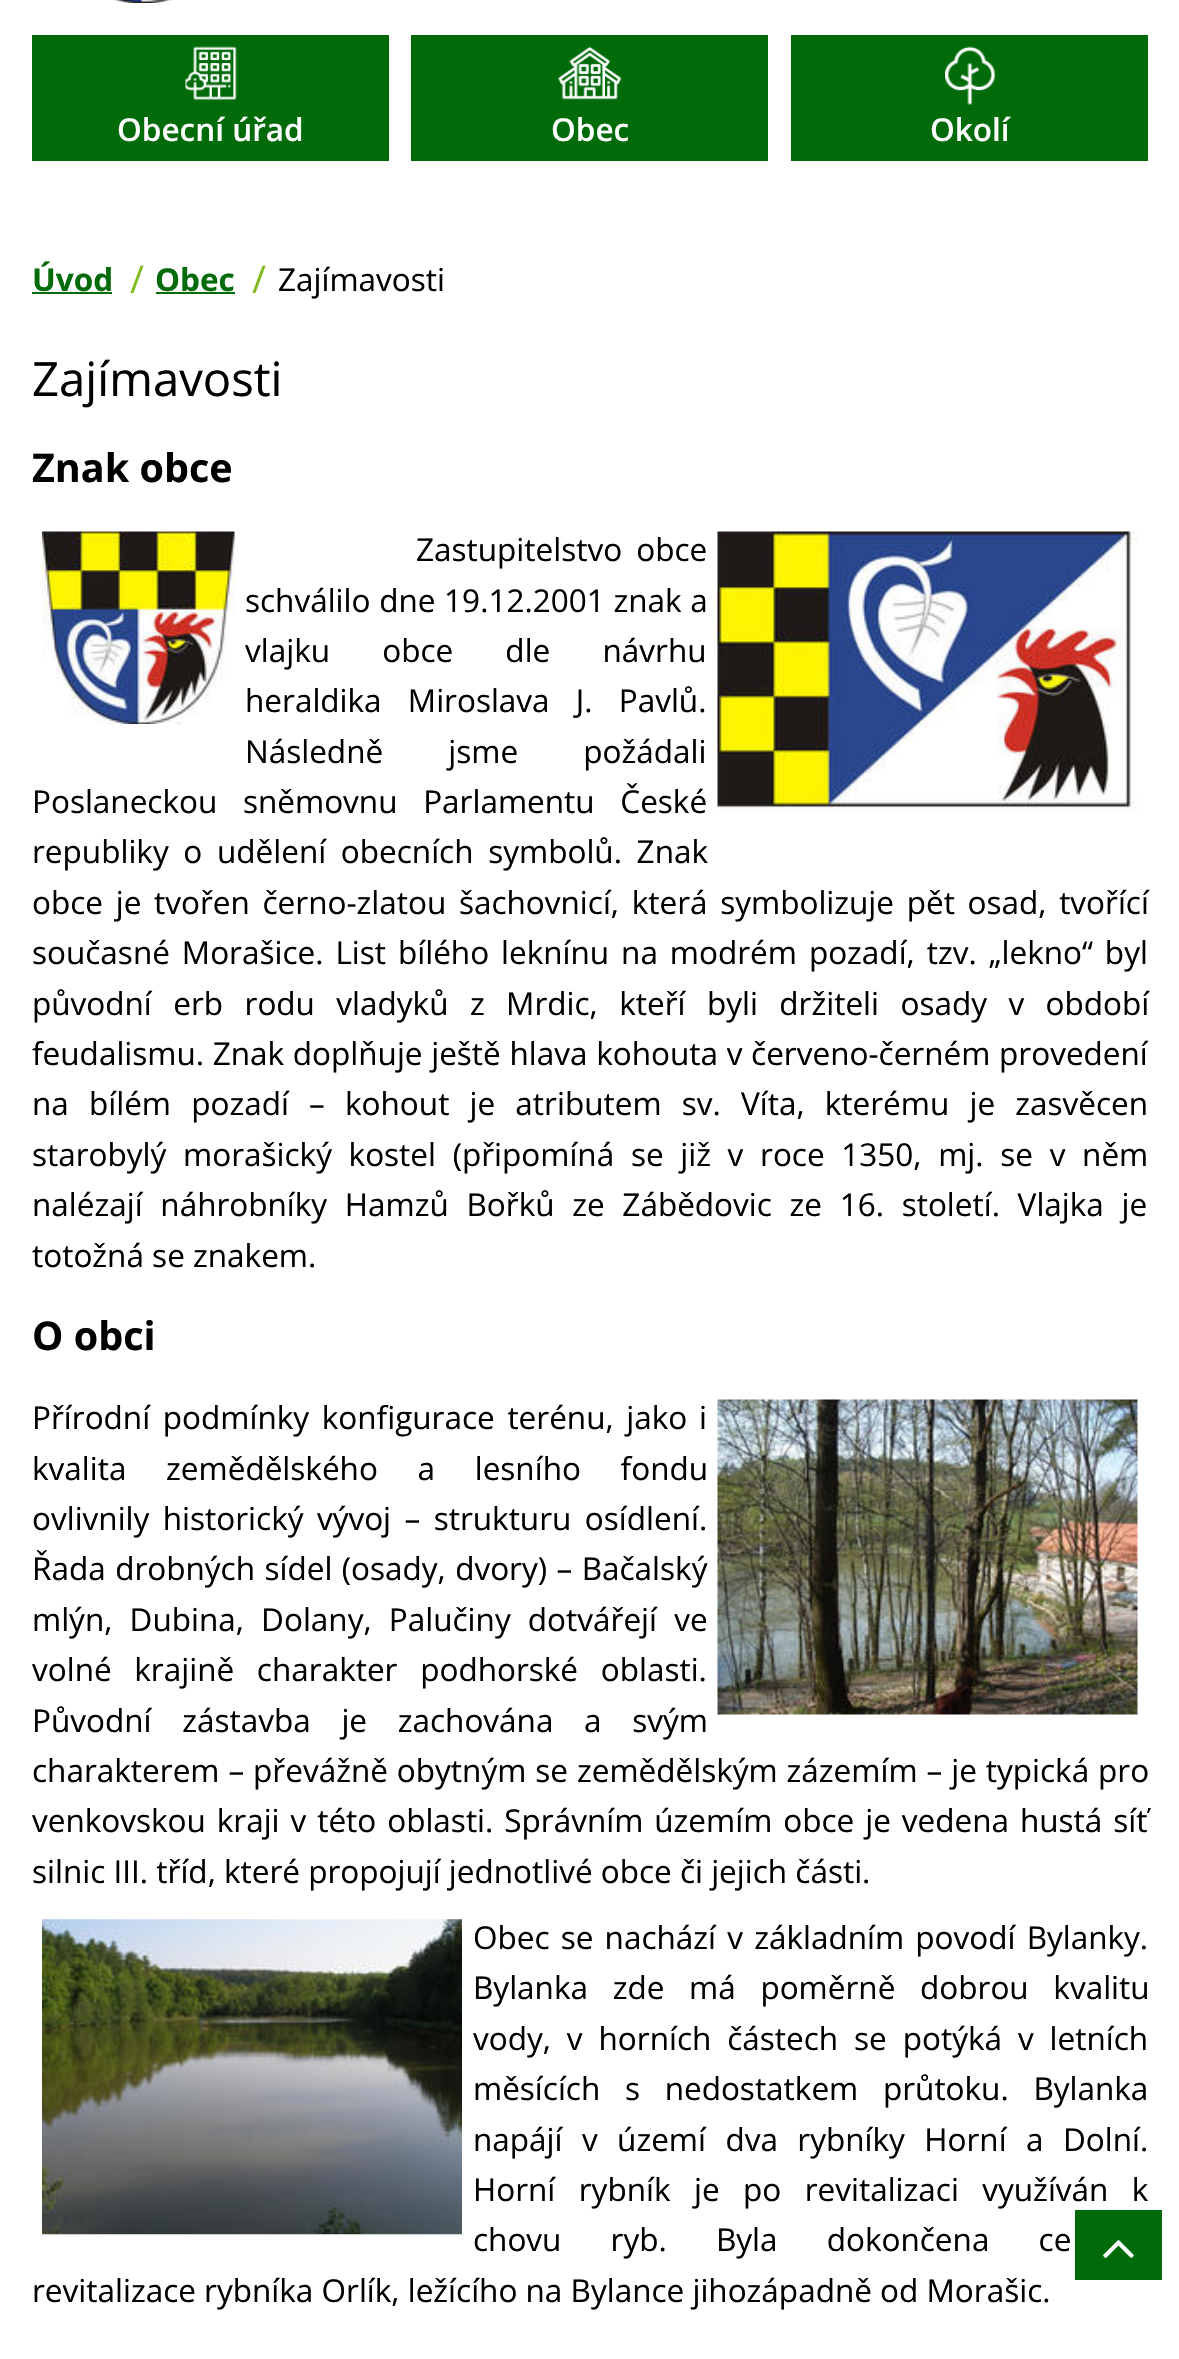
#include "include/core/SkBlurTypes.h"
#include "include/core/SkCanvas.h"
#include "include/core/SkData.h"
#include "include/core/SkFont.h"
#include "include/core/SkFontMgr.h"
#include "include/core/SkImage.h"
#include "include/core/SkMaskFilter.h"
#include "include/core/SkPaint.h"
#include "include/core/SkPathBuilder.h"
#include "include/core/SkTextBlob.h"
#include "include/effects/SkDashPathEffect.h"
#include "include/effects/SkGradientShader.h"
#include "include/utils/SkParsePath.h"

extern sk_sp<SkFontMgr> fontMgr;

static SkFont font(const char* family, int weight, float size, bool italic = false) {
    SkFontStyle style(weight, SkFontStyle::kNormal_Width,
        italic ? SkFontStyle::kItalic_Slant : SkFontStyle::kUpright_Slant);
    SkFont result(fontMgr->matchFamilyStyle(family, style), size);
    result.setSubpixel(true);
    return result;
}

static void drawLabel(SkCanvas* canvas, const char* s, float x, float y, const SkFont& font, SkColor color) {
    SkPaint ink(SkColor4f::FromColor(color));
    ink.setAntiAlias(true);
    canvas->drawString(s, x, y, font, ink);
}

static void drawTracked(SkCanvas* canvas, const char* s, float x, float y, const SkFont& font, const SkPaint& ink, float letter, float word) {
    std::vector<SkGlyphID> glyphs(font.countText(s, strlen(s), SkTextEncoding::kUTF8));
    std::vector<float> xs(glyphs.size());
    font.textToGlyphs(s, strlen(s), SkTextEncoding::kUTF8, glyphs);
    font.getXPos(glyphs, xs, x);
    float extra = 0;
    for (size_t i = 0; i < glyphs.size(); i++) {
        xs[i] += extra;
        extra += letter + word * (glyphs[i] == font.unicharToGlyph(' '));
    }
    canvas->drawTextBlob(SkTextBlob::MakeFromPosHGlyphs(glyphs, xs, y, font), 0, 0, ink);
}

static void fillRect(SkCanvas* canvas, float x, float y, float w, float h, SkColor color) {
    SkPaint ink(SkColor4f::FromColor(color));
    ink.setAntiAlias(true);
    canvas->drawRect(SkRect::MakeXYWH(x, y, w, h), ink);
}

static void drawPhoto(SkCanvas* canvas, const char* path, float x, float y, float w, float h) {
    auto image = SkImages::DeferredFromEncodedData(SkData::MakeFromFileName(path));
    canvas->drawImageRect(image, SkRect::MakeXYWH(x, y, w, h), SkSamplingOptions());
}

void draw(SkCanvas* canvas) {
    SkPaint paint;
    paint.setAntiAlias(true);
    canvas->clear(0xFFFFFFFF);
    drawPhoto(canvas, "assets/img1.png", 113, 0, 59, 3);
    fillRect(canvas, 32, 35, 357, 126, 0xFF006B08);
    drawPhoto(canvas, "assets/img2.png", 185, 46, 52, 54);
    SkFont font1 = font("Open Sans", 600, 31.5f);
    drawLabel(canvas, "Obecní úřad", 117, 141, font1, 0xFFFFFFFF);
    fillRect(canvas, 411, 35, 357, 126, 0xFF006B08);
    drawPhoto(canvas, "assets/img3.png", 558, 46, 64, 54);
    drawLabel(canvas, "Obec", 551, 141, font1, 0xFFFFFFFF);
    fillRect(canvas, 791, 35, 357, 126, 0xFF006B08);
    drawPhoto(canvas, "assets/img4.png", 945, 46, 51, 59);
    drawLabel(canvas, "Okolí", 930, 141, font1, 0xFFFFFFFF);
    SkFont font2 = font("Open Sans", 700, 31.5f);
    drawLabel(canvas, "Úvod", 32, 291, font2, 0xFF006B08);
    fillRect(canvas, 32, 292, 80, 2, 0xFF006B08);
    SkFont font3 = font("Open Sans", 400, 38);
    drawLabel(canvas, "/", 130, 293, font3, 0xFF83BC20);
    drawLabel(canvas, "Obec", 155, 291, font2, 0xFF006B08);
    fillRect(canvas, 156, 292, 79, 2, 0xFF006B08);
    drawLabel(canvas, "/", 252, 293, font3, 0xFF83BC20);
    SkFont font4 = font("Open Sans", 400, 31.5f);
    drawLabel(canvas, "Zajímavosti", 278, 291, font4, 0xFF000000);
    SkFont font5 = font("Open Sans", 400, 47.25f);
    drawLabel(canvas, "Zajímavosti", 32, 396, font5, 0xFF000000);
    SkFont font6 = font("Open Sans", 700, 39.5f);
    drawLabel(canvas, "Znak obce", 32, 482, font6, 0xFF000000);
    drawPhoto(canvas, "assets/img5.png", 42, 531, 193, 193);
    paint.setColor(0xFF000000);
    drawTracked(canvas, "Zastupitelstvo obce", 416, 561, font4, paint, 0, 6);
    drawPhoto(canvas, "assets/img6.png", 717, 531, 421, 281);
    drawTracked(canvas, "schválilo dne 19.12.2001 znak a", 245, 612, font4, paint, 0, 0.5f);
    drawTracked(canvas, "vlajku obce dle návrhu", 245, 662, font4, paint, 0, 44);
    drawTracked(canvas, "heraldika Miroslava J. Pavlů.", 245, 712, font4, paint, 0, 18);
    drawTracked(canvas, "Následně jsme požádali", 245, 763, font4, paint, 0, 57);
    drawTracked(canvas, "Poslaneckou sněmovnu Parlamentu České", 32, 813, font4, paint, 0, 17.5f);
    drawTracked(canvas, "republiky o udělení obecních symbolů. Znak", 32, 863, font4, paint, 0, 6.5f);
    drawTracked(canvas, "obce je tvořen černo-zlatou šachovnicí, která symbolizuje pět osad, tvořící", 32, 914, font4, paint, 0, 4.5f);
    drawTracked(canvas, "současné Morašice. List bílého leknínu na modrém pozadí, tzv. „lekno“ byl", 32, 964, font4, paint, 0, 3.75f);
    drawTracked(canvas, "původní erb rodu vladyků z Mrdic, kteří byli držiteli osady v období", 32, 1015, font4, paint, 0, 13.25f);
    drawTracked(canvas, "feudalismu. Znak doplňuje ještě hlava kohouta v červeno-černém provedení", 32, 1065, font4, paint, 0, 0.5f);
    drawTracked(canvas, "na bílém pozadí – kohout je atributem sv. Víta, kterému je zasvěcen", 32, 1115, font4, paint, 0, 12);
    drawTracked(canvas, "starobylý morašický kostel (připomíná se již v roce 1350, mj. se v něm", 32, 1166, font4, paint, 0, 8.5f);
    drawTracked(canvas, "nalézají náhrobníky Hamzů Bořků ze Zábědovic ze 16. století. Vlajka je", 32, 1216, font4, paint, 0, 9.5f);
    drawLabel(canvas, "totožná se znakem.", 32, 1267, font4, 0xFF000000);
    drawLabel(canvas, "O obci", 32, 1350, font6, 0xFF000000);
    drawTracked(canvas, "Přírodní podmínky konfigurace terénu, jako", 32, 1429, font4, paint, 0, 4.5f);
    drawLabel(canvas, "i", 699, 1429, font4, 0xFF000000);
    drawPhoto(canvas, "assets/img7.png", 717, 1399, 421, 316);
    drawTracked(canvas, "kvalita zemědělského a lesního fondu", 32, 1480, font4, paint, 0, 31.5f);
    drawTracked(canvas, "ovlivnily historický vývoj – strukturu osídlení.", 32, 1530, font4, paint, 0, 5.25f);
    drawTracked(canvas, "Řada drobných sídel (osady, dvory) – Bačalský", 32, 1580, font4, paint, 0, 1.25f);
    drawTracked(canvas, "mlýn, Dubina, Dolany, Palučiny dotvářejí ve", 32, 1631, font4, paint, 0, 9);
    drawTracked(canvas, "volné krajině charakter podhorské oblasti.", 32, 1681, font4, paint, 0, 14.5f);
    drawTracked(canvas, "Původní zástavba je zachována a svým", 32, 1732, font4, paint, 0, 22.5f);
    drawTracked(canvas, "charakterem – převážně obytným se zemědělským zázemím – je typická pro", 32, 1782, font4, paint, 0, 0.75f);
    drawTracked(canvas, "venkovskou kraji v této oblasti. Správním územím obce je vedena hustá síť", 32, 1832, font4, paint, 0, 2.75f);
    drawLabel(canvas, "silnic III. tříd, které propojují jednotlivé obce či jejich části.", 32, 1883, font4, 0xFF000000);
    drawPhoto(canvas, "assets/img8.png", 42, 1919, 420, 316);
    drawTracked(canvas, "Obec se nachází v základním povodí Bylanky.", 473, 1949, font4, paint, 0, 3);
    drawTracked(canvas, "Bylanka zde má poměrně dobrou kvalitu", 473, 1999, font4, paint, 0, 16.5f);
    drawTracked(canvas, "vody, v horních částech se potýká v letních", 473, 2050, font4, paint, 0, 7.75f);
    drawTracked(canvas, "měsících s nedostatkem průtoku. Bylanka", 473, 2100, font4, paint, 0, 16.5f);
    drawTracked(canvas, "napájí v území dva rybníky Horní a Dolní.", 473, 2151, font4, paint, 0, 11.25f);
    drawTracked(canvas, "Horní rybník je po revitalizaci využíván k", 473, 2201, font4, paint, 0, 15.25f);
    drawTracked(canvas, "chovu ryb. Byla dokončena ce", 473, 2251, font4, paint, 0, 41);
    drawLabel(canvas, "revitalizace rybníka Orlík, ležícího na Bylance jihozápadně od Morašic.", 32, 2302, font4, 0xFF000000);
    fillRect(canvas, 1075, 2210, 87, 70, 0xFF006B08);
    drawPhoto(canvas, "assets/img9.png", 1103, 2240, 31, 18);
}
